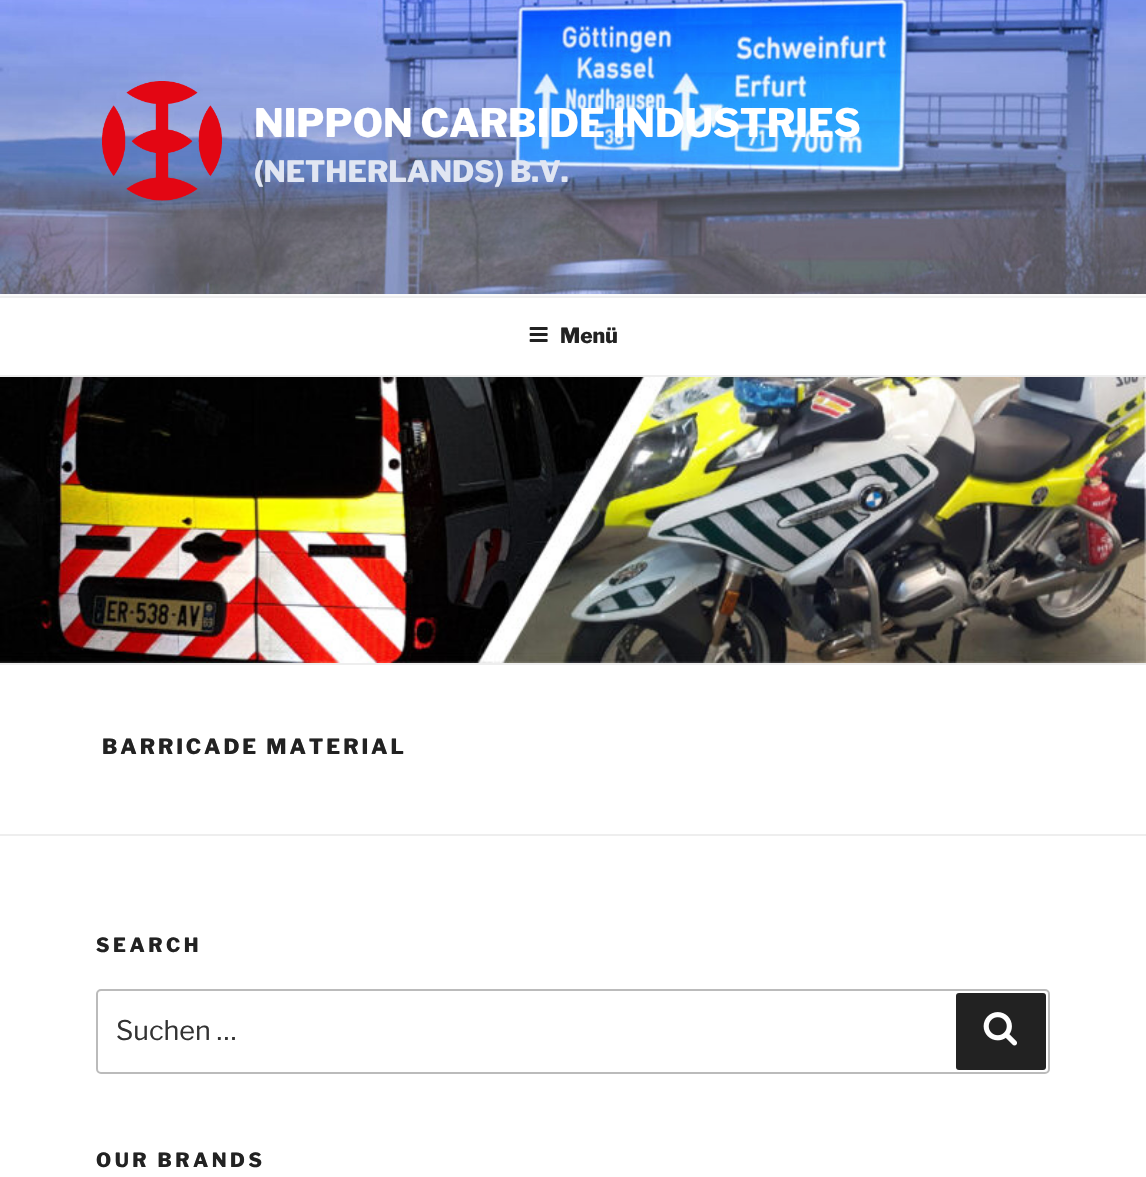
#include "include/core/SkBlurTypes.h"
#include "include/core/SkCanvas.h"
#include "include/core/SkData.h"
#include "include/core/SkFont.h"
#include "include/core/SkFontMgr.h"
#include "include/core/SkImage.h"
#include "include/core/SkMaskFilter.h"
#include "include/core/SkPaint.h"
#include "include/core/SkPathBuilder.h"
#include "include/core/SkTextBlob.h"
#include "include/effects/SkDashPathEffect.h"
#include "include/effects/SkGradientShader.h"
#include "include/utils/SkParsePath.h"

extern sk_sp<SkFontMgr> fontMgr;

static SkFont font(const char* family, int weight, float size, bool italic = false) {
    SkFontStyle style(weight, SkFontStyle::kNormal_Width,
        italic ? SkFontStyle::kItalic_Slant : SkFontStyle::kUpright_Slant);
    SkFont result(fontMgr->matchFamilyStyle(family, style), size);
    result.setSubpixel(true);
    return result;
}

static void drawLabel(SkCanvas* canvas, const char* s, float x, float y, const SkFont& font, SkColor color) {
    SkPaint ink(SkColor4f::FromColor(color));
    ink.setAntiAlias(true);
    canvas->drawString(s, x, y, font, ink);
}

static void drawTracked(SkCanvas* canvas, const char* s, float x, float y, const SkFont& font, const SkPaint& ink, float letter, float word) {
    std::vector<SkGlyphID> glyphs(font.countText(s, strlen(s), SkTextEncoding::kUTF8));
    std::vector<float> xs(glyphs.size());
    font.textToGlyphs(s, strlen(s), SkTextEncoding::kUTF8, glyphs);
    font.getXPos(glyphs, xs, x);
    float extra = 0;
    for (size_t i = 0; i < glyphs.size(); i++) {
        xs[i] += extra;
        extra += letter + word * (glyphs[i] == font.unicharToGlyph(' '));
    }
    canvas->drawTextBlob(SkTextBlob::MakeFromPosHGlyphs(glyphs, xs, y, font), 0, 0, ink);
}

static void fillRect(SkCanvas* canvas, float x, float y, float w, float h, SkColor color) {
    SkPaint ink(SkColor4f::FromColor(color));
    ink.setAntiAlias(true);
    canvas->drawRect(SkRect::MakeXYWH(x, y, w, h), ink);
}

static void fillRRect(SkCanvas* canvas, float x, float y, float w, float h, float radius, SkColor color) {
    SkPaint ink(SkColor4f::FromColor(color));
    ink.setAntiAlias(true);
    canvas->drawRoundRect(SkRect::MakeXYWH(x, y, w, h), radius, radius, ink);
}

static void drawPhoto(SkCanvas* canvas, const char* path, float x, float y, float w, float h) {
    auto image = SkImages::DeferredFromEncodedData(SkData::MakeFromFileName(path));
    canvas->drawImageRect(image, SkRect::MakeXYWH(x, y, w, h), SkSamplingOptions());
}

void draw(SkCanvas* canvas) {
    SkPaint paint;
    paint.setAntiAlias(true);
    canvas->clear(0xFFFFFFFF);
    fillRect(canvas, 0, 294, 1146, 2, 0xFFFAFAFA);
    drawPhoto(canvas, "assets/img1.png", 0, 0, 1146, 294);
    drawPhoto(canvas, "assets/img2.png", 102, 81, 120, 120);
    SkFont font1 = font("Libre Franklin", 100, 39);
    drawLabel(canvas, "NIPPON CARBIDE INDUSTRIES", 254, 137, font1, 0xFFFFFFFF);
    SkFont font2 = font("Libre Franklin", 100, 29.25f);
    drawLabel(canvas, "(NETHERLANDS) B.V.", 254, 182, font2, 0xFFE1E6F2);
    fillRect(canvas, 0, 296, 1146, 2, 0xFFEEEEEE);
    fillRect(canvas, 0, 375, 1146, 2, 0xFFEEEEEE);
    drawPhoto(canvas, "assets/img3.png", 529, 327, 19, 15);
    SkFont font3 = font("Libre Franklin", 100, 21);
    drawLabel(canvas, "Menü", 560, 343, font3, 0xFF222222);
    fillRect(canvas, 0, 663, 1146, 2, 0xFFEEEEEE);
    drawPhoto(canvas, "assets/img4.png", 0, 377, 1146, 286);
    paint.setColor(0xFF222222);
    drawTracked(canvas, "BARRICADE MATERIAL", 102, 754, font3, paint, 2.9f, 0);
    fillRect(canvas, 0, 834, 1146, 2, 0xFFEEEEEE);
    SkFont font4 = font("Libre Franklin", 100, 19.5f);
    drawTracked(canvas, "SEARCH", 96, 952, font4, paint, 3.5f, 0);
    paint.setStroke(true);
    paint.setStrokeWidth(2);
    paint.setColor(0xFFBBBBBB);
    canvas->drawRoundRect(SkRect::MakeXYWH(97, 990, 952, 83), 4, 4, paint);
    SkFont font5 = font("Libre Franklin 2", 100, 27);
    drawLabel(canvas, "Suchen …", 116, 1040, font5, 0xFF333333);
    fillRRect(canvas, 956, 993, 90, 77, 3, 0xFF222222);
    drawPhoto(canvas, "assets/img5.png", 983, 1012, 34, 34);
    paint.setStroke(false);
    paint.setColor(0xFF222222);
    drawTracked(canvas, "OUR BRANDS", 96, 1167, font4, paint, 3.5f, 0);
}
